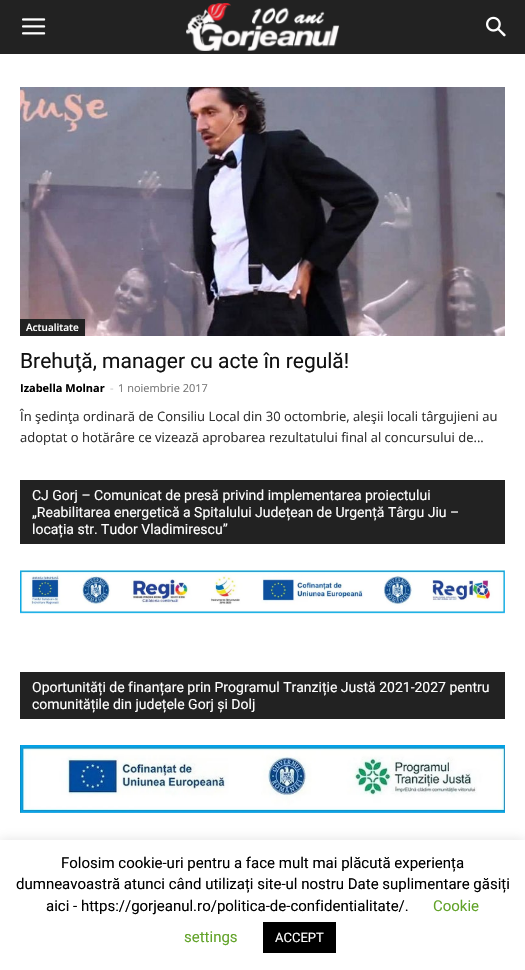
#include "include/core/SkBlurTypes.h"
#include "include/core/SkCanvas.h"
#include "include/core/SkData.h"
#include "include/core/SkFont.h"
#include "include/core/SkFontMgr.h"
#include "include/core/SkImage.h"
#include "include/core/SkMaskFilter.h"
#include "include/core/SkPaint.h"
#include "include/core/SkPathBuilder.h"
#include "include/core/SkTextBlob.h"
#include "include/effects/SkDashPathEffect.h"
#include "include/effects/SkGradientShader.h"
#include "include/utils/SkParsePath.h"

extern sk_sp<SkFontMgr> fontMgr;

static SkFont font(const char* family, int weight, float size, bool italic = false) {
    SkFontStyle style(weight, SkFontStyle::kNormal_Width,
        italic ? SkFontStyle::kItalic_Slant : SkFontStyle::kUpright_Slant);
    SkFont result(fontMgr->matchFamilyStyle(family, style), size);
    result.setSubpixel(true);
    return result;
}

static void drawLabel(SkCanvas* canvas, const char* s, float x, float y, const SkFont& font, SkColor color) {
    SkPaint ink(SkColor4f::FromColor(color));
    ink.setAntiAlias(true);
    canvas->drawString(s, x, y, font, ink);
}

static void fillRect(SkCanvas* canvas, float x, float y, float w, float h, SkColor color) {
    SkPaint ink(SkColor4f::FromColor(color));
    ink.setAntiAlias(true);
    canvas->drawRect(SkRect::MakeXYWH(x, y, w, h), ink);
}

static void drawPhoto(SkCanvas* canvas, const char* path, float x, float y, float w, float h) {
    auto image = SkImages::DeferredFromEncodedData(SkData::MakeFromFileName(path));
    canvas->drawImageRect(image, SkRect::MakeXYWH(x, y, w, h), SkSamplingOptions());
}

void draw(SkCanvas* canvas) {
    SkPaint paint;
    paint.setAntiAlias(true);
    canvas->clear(0xFFFFFFFF);
    fillRect(canvas, 0, 0, 525, 54, 0xFF222222);
    drawPhoto(canvas, "assets/img1.png", 22, 18, 24, 17);
    drawPhoto(canvas, "assets/img2.png", 186, 3, 154, 48);
    drawPhoto(canvas, "assets/img3.png", 486, 16, 20, 21);
    drawPhoto(canvas, "assets/img4.png", 20, 87, 485, 249);
    fillRect(canvas, 20, 319, 65, 17, 0xFF222222);
    SkFont font1 = font("Open Sans", 600, 10);
    drawLabel(canvas, "Actualitate", 26, 331, font1, 0xFFFFFFFF);
    SkFont font2 = font("Roboto", 400, 21);
    drawLabel(canvas, "Brehuţă, manager cu acte în regulă!", 20, 368, font2, 0xFF111111);
    SkFont font3 = font("Open Sans", 700, 11);
    drawLabel(canvas, "Izabella Molnar", 20, 392, font3, 0xFF000000);
    SkFont font4 = font("Open Sans", 400, 11);
    drawLabel(canvas, "-", 110, 392, font4, 0xFFCCCCCC);
    drawLabel(canvas, "1 noiembrie 2017", 118, 392, font4, 0xFF767676);
    SkFont font5 = font("Open Sans", 400, 13);
    drawLabel(canvas, "În şedinţa ordinară de Consiliu Local din 30 octombrie, aleşii locali târgujieni au", 20, 421, font5, 0xFF2F2F2F);
    drawLabel(canvas, "adoptat o hotărâre ce vizează aprobarea rezultatului final al concursului de...", 20, 442, font5, 0xFF2F2F2F);
    fillRect(canvas, 20, 480, 485, 64, 0xFF222222);
    SkFont font6 = font("Roboto", 400, 14);
    drawLabel(canvas, "CJ Gorj – Comunicat de presă privind implementarea proiectului", 32, 500, font6, 0xFFFFFFFF);
    drawLabel(canvas, "„Reabilitarea energetică a Spitalului Județean de Urgență Târgu Jiu –", 32, 517, font6, 0xFFFFFFFF);
    drawLabel(canvas, "locația str. Tudor Vladimirescu”", 32, 534, font6, 0xFFFFFFFF);
    drawPhoto(canvas, "assets/img5.png", 20, 570, 485, 44);
    fillRect(canvas, 20, 672, 485, 47, 0xFF222222);
    drawLabel(canvas, "Oportunități de finanțare prin Programul Tranziție Justă 2021-2027 pentru", 32, 692, font6, 0xFFFFFFFF);
    drawLabel(canvas, "comunitățile din județele Gorj și Dolj", 32, 709, font6, 0xFFFFFFFF);
    drawPhoto(canvas, "assets/img6.png", 20, 745, 485, 68);
    paint.setColor(0x4DACABAB);
    paint.setMaskFilter(SkMaskFilter::MakeBlur(kNormal_SkBlurStyle, 5));
    canvas->drawRect(SkRect::MakeXYWH(0, 839, 525, 130), paint);
    paint.setMaskFilter(nullptr);
    fillRect(canvas, 0, 840, 525, 130, 0xFFFFFFFF);
    SkFont font7 = font("Roboto", 400, 15);
    drawLabel(canvas, "Folosim cookie-uri pentru a face mult mai plăcută experiența", 61, 868, font7, 0xFF000000);
    drawLabel(canvas, "dumneavoastră atunci când utilizați site-ul nostru Date suplimentare găsiți", 16, 889, font7, 0xFF000000);
    drawLabel(canvas, "aici - https://gorjeanul.ro/politica-de-confidentialitate/.", 46, 911, font7, 0xFF000000);
    drawLabel(canvas, "Cookie", 433, 911, font7, 0xFF62A329);
    drawLabel(canvas, "settings", 184, 942, font7, 0xFF62A329);
    fillRect(canvas, 263, 922, 73, 31, 0xFF000000);
    SkFont font8 = font("Roboto", 400, 13);
    drawLabel(canvas, "ACCEPT", 275, 942, font8, 0xFFFFFFFF);
}
